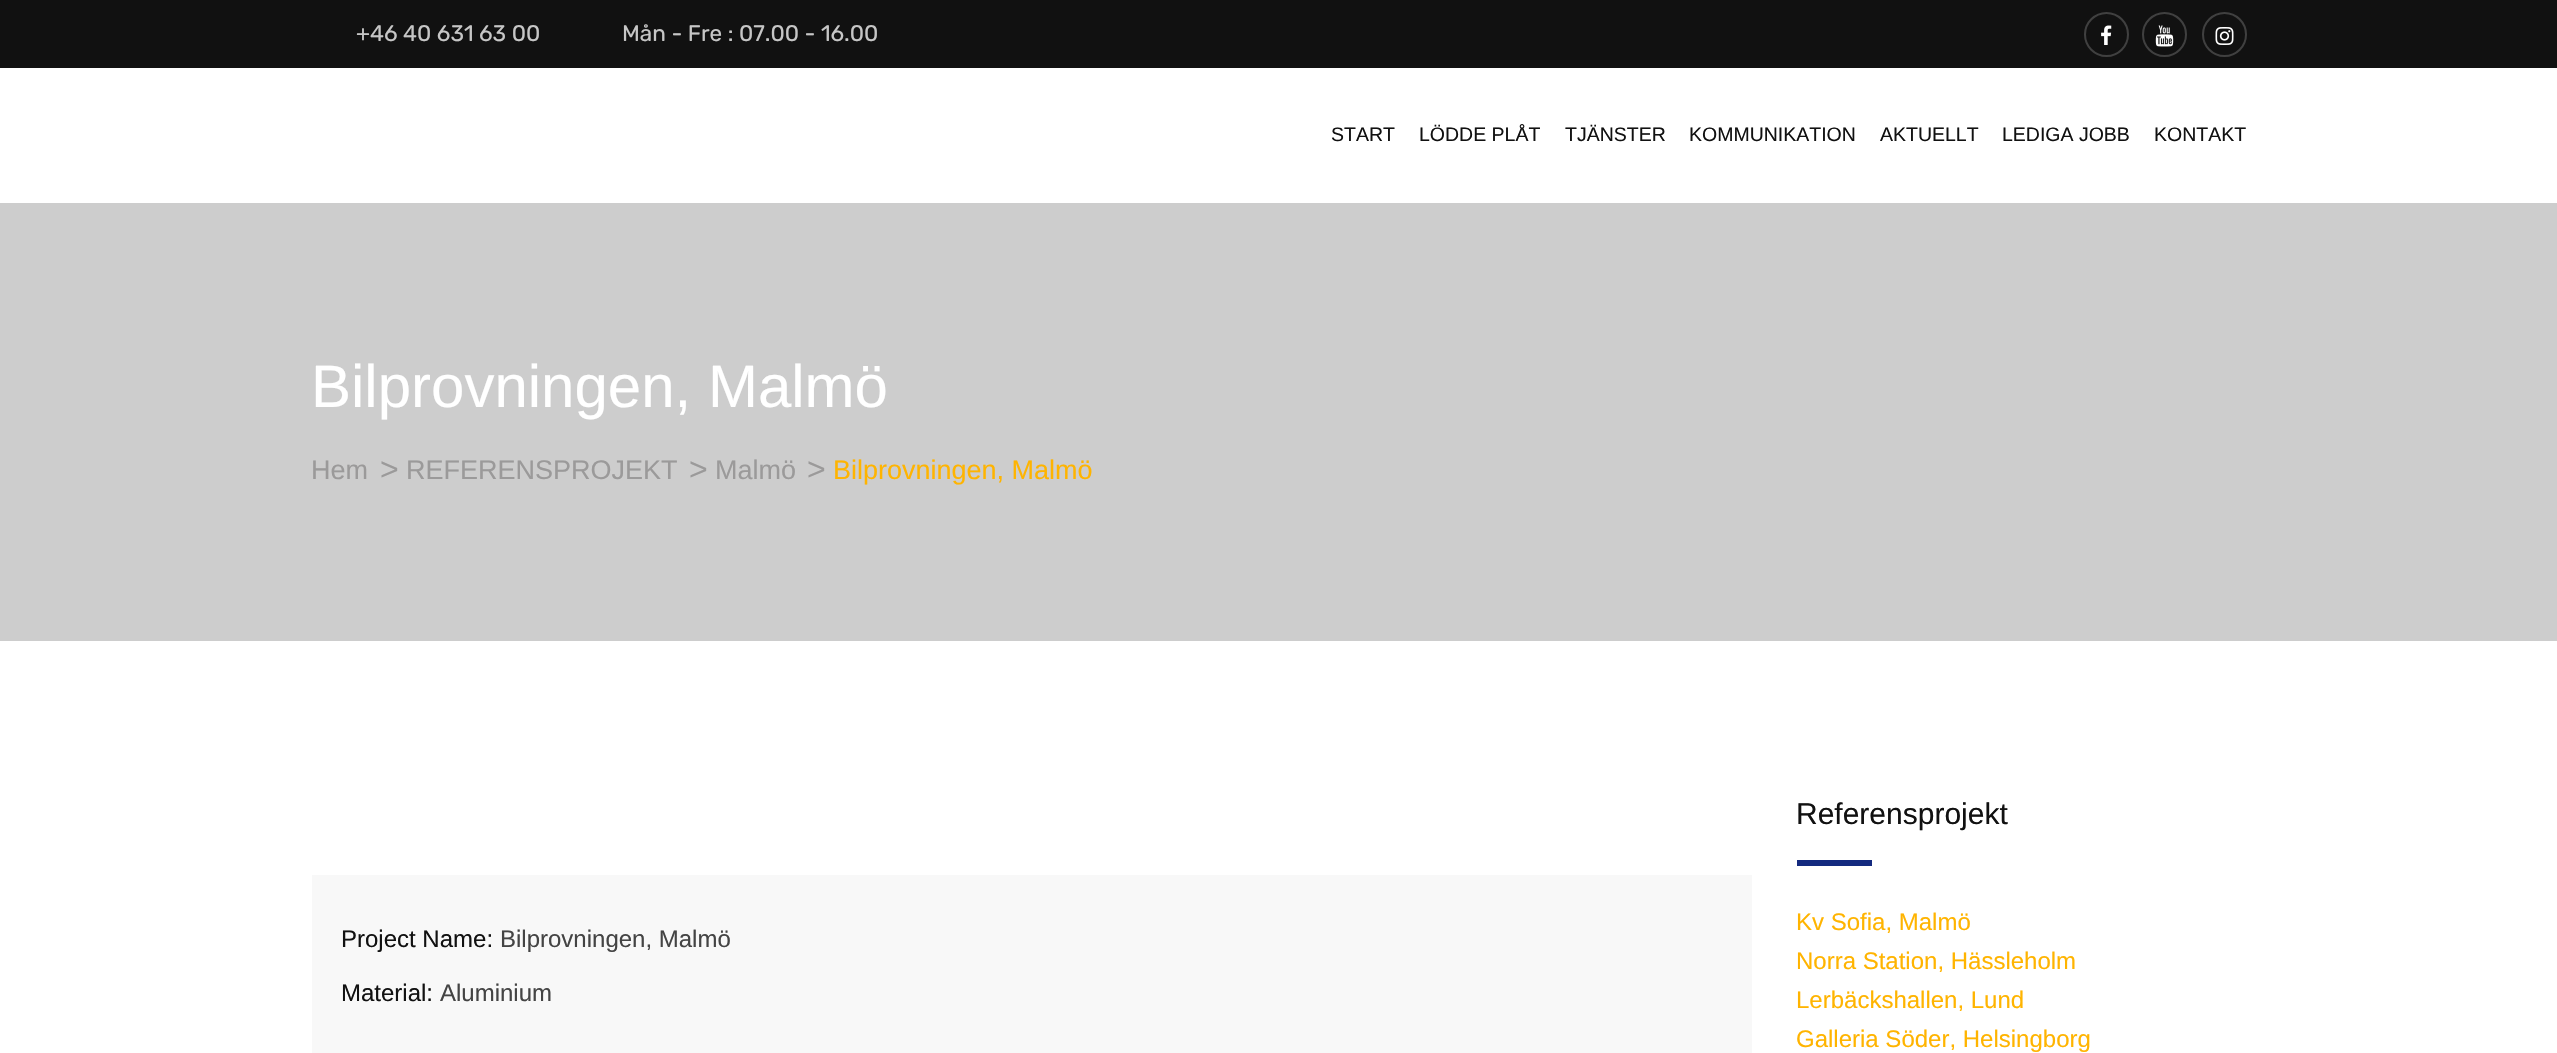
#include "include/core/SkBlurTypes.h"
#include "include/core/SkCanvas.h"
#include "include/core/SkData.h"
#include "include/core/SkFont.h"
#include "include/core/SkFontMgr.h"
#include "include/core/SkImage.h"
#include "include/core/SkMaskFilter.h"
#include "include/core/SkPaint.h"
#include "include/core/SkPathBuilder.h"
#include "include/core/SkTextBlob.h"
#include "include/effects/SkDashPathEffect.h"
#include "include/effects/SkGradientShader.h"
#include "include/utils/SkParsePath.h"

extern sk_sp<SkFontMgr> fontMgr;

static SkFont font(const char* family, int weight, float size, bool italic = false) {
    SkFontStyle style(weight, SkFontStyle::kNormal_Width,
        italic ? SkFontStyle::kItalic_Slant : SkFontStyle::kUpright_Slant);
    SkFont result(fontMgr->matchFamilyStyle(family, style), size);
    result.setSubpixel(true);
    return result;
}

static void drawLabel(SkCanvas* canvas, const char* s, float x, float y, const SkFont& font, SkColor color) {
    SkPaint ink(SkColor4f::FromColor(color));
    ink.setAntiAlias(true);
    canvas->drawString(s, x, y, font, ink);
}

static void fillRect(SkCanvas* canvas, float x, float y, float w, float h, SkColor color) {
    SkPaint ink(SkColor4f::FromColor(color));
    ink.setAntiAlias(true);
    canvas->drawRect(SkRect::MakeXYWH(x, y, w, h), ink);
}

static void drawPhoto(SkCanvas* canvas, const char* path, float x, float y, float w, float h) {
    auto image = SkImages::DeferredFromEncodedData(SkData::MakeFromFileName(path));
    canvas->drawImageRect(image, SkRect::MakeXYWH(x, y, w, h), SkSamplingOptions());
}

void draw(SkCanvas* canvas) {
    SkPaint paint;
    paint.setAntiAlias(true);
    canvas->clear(0xFFFFFFFF);
    fillRect(canvas, 0, 0, 2557, 68, 0xFF111111);
    SkFont font1 = font("Rubik", 400, 22.5f);
    drawLabel(canvas, "+46 40 631 63 00", 356, 41, font1, 0xFFC6C6C6);
    drawLabel(canvas, "Mån - Fre : 07.00 - 16.00", 622, 41, font1, 0xFFC6C6C6);
    paint.setStroke(true);
    paint.setStrokeWidth(2);
    paint.setColor(0xFF404040);
    canvas->drawCircle(2106.5f, 34.5f, 21.5f, paint);
    drawPhoto(canvas, "assets/img1.png", 2101, 25, 11, 20);
    canvas->drawCircle(2164.5f, 34.5f, 21.5f, paint);
    drawPhoto(canvas, "assets/img2.png", 2155, 25, 19, 22);
    canvas->drawCircle(2224.5f, 34.5f, 21.5f, paint);
    drawPhoto(canvas, "assets/img3.png", 2215, 27, 19, 18);
    SkFont font2 = font("Liberation Sans", 400, 19.5f);
    drawLabel(canvas, "START", 1331, 141, font2, 0xFF111111);
    drawLabel(canvas, "LÖDDE PLÅT", 1419, 141, font2, 0xFF111111);
    drawLabel(canvas, "TJÄNSTER", 1565, 141, font2, 0xFF111111);
    drawLabel(canvas, "KOMMUNIKATION", 1689, 141, font2, 0xFF111111);
    drawLabel(canvas, "AKTUELLT", 1880, 141, font2, 0xFF111111);
    drawLabel(canvas, "LEDIGA JOBB", 2002, 141, font2, 0xFF111111);
    drawLabel(canvas, "KONTAKT", 2154, 141, font2, 0xFF111111);
    fillRect(canvas, 0, 203, 2557, 438, 0xFFCDCDCD);
    SkFont font3 = font("Liberation Sans", 400, 60);
    drawLabel(canvas, "Bilprovningen, Malmö", 311, 407, font3, 0xFFFFFFFF);
    SkFont font4 = font("Liberation Sans", 400, 27);
    drawLabel(canvas, "Hem", 311, 479, font4, 0xFF9B9A9A);
    SkFont font5 = font("Liberation Sans", 400, 32);
    drawLabel(canvas, ">", 380, 480, font5, 0xFF9B9A9A);
    drawLabel(canvas, "REFERENSPROJEKT", 406, 479, font4, 0xFF9B9A9A);
    drawLabel(canvas, ">", 689, 480, font5, 0xFF9B9A9A);
    drawLabel(canvas, "Malmö", 715, 479, font4, 0xFF9B9A9A);
    drawLabel(canvas, ">", 807, 480, font5, 0xFF9B9A9A);
    drawLabel(canvas, "Bilprovningen, Malmö", 833, 479, font4, 0xFFFFB400);
    fillRect(canvas, 312, 875, 1440, 178, 0xFFF8F8F8);
    SkFont font6 = font("Liberation Sans", 400, 24);
    drawLabel(canvas, "Project Name:", 341, 947, font6, 0xFF111111);
    drawLabel(canvas, "Bilprovningen, Malmö", 500, 947, font6, 0xFF444444);
    drawLabel(canvas, "Material:", 341, 1001, font6, 0xFF111111);
    drawLabel(canvas, "Aluminium", 440, 1001, font6, 0xFF444444);
    SkFont font7 = font("Liberation Sans", 400, 30);
    drawLabel(canvas, "Referensprojekt", 1796, 824, font7, 0xFF111111);
    fillRect(canvas, 1797, 860, 75, 6, 0xFF142A7F);
    drawLabel(canvas, "Kv Sofia, Malmö", 1796, 930, font6, 0xFFFFB400);
    drawLabel(canvas, "Norra Station, Hässleholm", 1796, 969, font6, 0xFFFFB400);
    drawLabel(canvas, "Lerbäckshallen, Lund", 1796, 1008, font6, 0xFFFFB400);
    drawLabel(canvas, "Galleria Söder, Helsingborg", 1796, 1047, font6, 0xFFFFB400);
}
